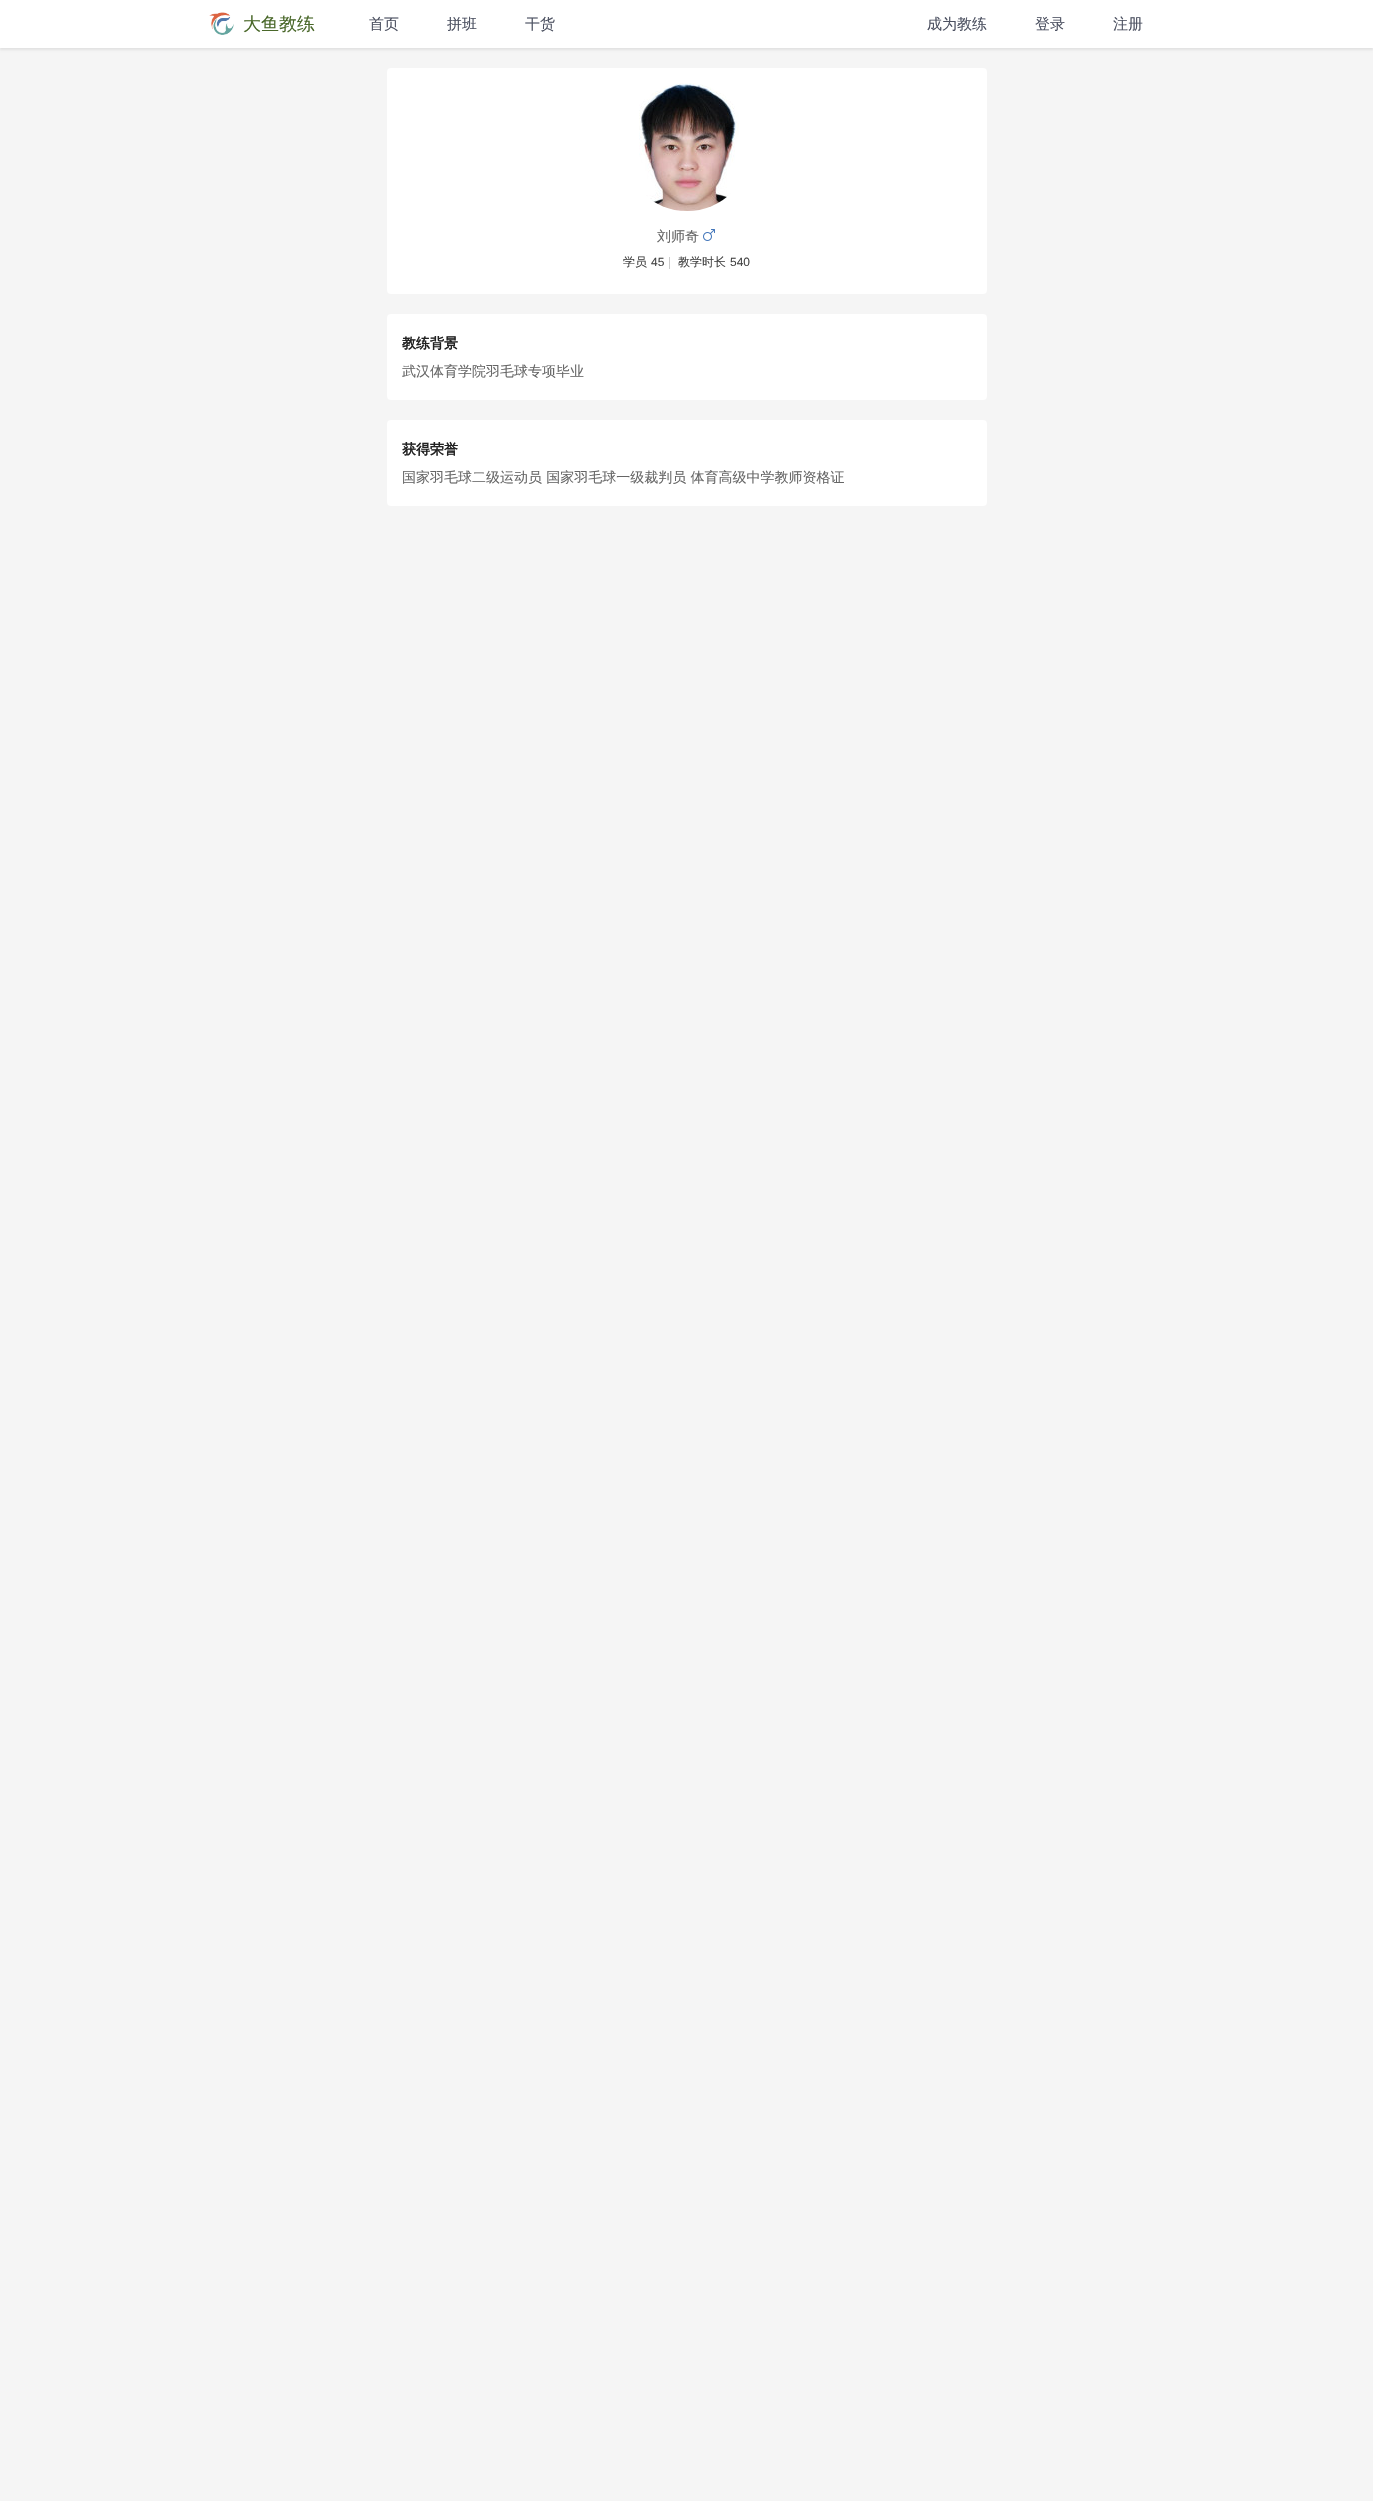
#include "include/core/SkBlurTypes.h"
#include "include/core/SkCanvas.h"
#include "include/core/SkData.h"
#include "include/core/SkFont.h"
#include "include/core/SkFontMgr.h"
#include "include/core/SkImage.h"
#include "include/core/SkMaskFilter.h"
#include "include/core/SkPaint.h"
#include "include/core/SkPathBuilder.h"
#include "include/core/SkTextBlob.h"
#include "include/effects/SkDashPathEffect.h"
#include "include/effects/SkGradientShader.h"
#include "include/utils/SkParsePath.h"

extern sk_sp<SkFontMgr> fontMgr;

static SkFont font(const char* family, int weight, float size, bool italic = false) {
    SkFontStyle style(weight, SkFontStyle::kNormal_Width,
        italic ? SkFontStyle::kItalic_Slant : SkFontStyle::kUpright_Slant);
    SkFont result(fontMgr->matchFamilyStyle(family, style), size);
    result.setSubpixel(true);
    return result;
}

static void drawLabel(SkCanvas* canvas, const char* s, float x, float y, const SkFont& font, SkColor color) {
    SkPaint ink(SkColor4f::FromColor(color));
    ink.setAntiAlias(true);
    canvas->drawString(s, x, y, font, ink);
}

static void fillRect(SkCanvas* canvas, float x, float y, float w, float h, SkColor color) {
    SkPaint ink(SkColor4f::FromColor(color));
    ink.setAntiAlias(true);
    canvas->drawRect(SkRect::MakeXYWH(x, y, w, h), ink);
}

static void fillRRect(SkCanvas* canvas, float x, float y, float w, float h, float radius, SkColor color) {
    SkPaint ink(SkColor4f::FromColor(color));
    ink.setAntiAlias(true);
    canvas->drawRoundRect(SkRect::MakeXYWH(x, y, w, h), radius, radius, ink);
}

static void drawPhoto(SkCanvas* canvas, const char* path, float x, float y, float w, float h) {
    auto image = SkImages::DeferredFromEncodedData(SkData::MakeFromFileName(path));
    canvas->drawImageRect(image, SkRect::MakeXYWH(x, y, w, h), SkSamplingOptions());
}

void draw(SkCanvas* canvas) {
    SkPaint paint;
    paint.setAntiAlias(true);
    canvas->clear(0xFFF5F5F5);
    paint.setColor(0x14000000);
    paint.setMaskFilter(SkMaskFilter::MakeBlur(kNormal_SkBlurStyle, 1));
    canvas->drawRect(SkRect::MakeXYWH(0, 2, 1373, 48), paint);
    paint.setMaskFilter(nullptr);
    fillRect(canvas, 0, 0, 1373, 48, 0xFFFFFFFF);
    drawPhoto(canvas, "assets/img1.png", 209, 12, 25, 23);
    SkFont font1 = font("WenQuanYi Zen Hei", 500, 18);
    drawLabel(canvas, "大鱼教练", 243, 30, font1, 0xFF4A682A);
    SkFont font2 = font("WenQuanYi Zen Hei", 500, 15);
    drawLabel(canvas, "首页", 369, 29, font2, 0xFF4C5161);
    drawLabel(canvas, "拼班", 447, 29, font2, 0xFF4C5161);
    drawLabel(canvas, "干货", 525, 29, font2, 0xFF4C5161);
    drawLabel(canvas, "成为教练", 927, 29, font2, 0xFF4C5161);
    drawLabel(canvas, "登录", 1035, 29, font2, 0xFF4C5161);
    drawLabel(canvas, "注册", 1113, 29, font2, 0xFF4C5161);
    fillRRect(canvas, 387, 68, 600, 226, 4, 0xFFFFFFFF);
    drawPhoto(canvas, "assets/img2.png", 639, 83, 100, 128);
    SkFont font3 = font("WenQuanYi Zen Hei", 500, 14);
    drawLabel(canvas, "刘师奇", 657, 241, font3, 0xFF666666);
    drawPhoto(canvas, "assets/img3.png", 703, 229, 12, 12);
    SkFont font4 = font("WenQuanYi Zen Hei", 500, 12);
    drawLabel(canvas, "学员", 623, 266, font4, 0xFF444444);
    SkFont font5 = font("Liberation Sans", 400, 12);
    drawLabel(canvas, "45", 651, 266, font5, 0xFF444444);
    fillRect(canvas, 669, 257, 1, 12, 0xFFCCCCCC);
    drawLabel(canvas, "教学时长", 678, 266, font4, 0xFF444444);
    drawLabel(canvas, "540", 730, 266, font5, 0xFF444444);
    fillRRect(canvas, 387, 314, 600, 86, 4, 0xFFFFFFFF);
    SkFont font6 = font("WenQuanYi Zen Hei", 700, 14);
    drawLabel(canvas, "教练背景", 402, 348, font6, 0xFF222222);
    drawLabel(canvas, "武汉体育学院羽毛球专项毕业", 402, 376, font3, 0xFF666666);
    fillRRect(canvas, 387, 420, 600, 86, 4, 0xFFFFFFFF);
    drawLabel(canvas, "获得荣誉", 402, 454, font6, 0xFF222222);
    drawLabel(canvas, "国家羽毛球二级运动员 国家羽毛球一级裁判员 体育高级中学教师资格证", 402, 482, font3, 0xFF666666);
}
